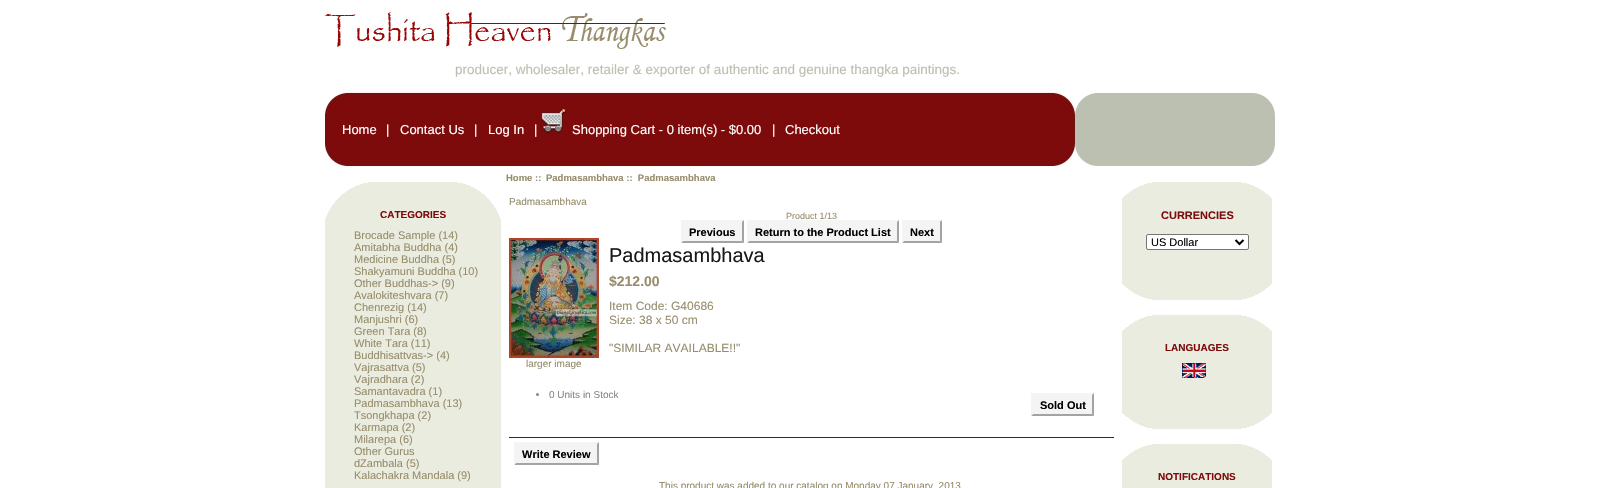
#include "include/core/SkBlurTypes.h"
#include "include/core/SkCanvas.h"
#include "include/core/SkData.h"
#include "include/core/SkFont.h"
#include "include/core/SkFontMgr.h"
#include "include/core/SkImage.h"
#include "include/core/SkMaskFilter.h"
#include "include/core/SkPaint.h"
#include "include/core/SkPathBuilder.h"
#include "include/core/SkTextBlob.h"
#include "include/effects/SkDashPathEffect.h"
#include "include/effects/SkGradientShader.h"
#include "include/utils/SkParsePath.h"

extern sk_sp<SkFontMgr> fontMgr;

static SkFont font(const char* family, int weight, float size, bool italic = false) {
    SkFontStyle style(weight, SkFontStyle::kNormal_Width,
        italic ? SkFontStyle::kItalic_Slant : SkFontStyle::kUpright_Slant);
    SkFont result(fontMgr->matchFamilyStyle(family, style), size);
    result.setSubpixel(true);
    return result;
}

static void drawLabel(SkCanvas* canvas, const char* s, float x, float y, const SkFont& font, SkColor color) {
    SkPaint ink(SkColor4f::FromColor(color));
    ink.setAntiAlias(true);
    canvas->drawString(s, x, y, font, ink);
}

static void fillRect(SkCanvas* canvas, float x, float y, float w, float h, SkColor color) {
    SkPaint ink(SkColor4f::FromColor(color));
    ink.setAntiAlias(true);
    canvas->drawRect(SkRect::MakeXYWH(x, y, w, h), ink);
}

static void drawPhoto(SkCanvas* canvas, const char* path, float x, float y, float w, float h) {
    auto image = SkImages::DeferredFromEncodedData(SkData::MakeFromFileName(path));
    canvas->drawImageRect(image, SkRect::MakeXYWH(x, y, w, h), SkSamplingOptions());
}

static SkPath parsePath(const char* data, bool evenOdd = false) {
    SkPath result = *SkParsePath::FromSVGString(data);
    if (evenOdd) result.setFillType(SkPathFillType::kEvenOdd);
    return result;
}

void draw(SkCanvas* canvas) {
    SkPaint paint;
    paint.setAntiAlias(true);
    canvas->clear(0xFFFFFFFF);
    drawPhoto(canvas, "assets/img1.png", 325, 10, 341, 39);
    SkFont font1 = font("Liberation Sans", 400, 13.5f);
    drawLabel(canvas, "producer, wholesaler, retailer & exporter of authentic and genuine thangka paintings.", 455, 74, font1, 0xFFBCC0B0);
    drawPhoto(canvas, "assets/img2.png", 325, 92, 950, 75);
    SkFont font2 = font("Liberation Sans", 400, 13);
    drawLabel(canvas, "Home", 342, 134, font2, 0xFFFFFFFD);
    drawLabel(canvas, "|", 386, 134, font2, 0xFFFFFFFD);
    drawLabel(canvas, "Contact Us", 400, 134, font2, 0xFFFFFFFD);
    drawLabel(canvas, "|", 474, 134, font2, 0xFFFFFFFD);
    drawLabel(canvas, "Log In", 488, 134, font2, 0xFFFFFFFD);
    drawLabel(canvas, "|", 534, 134, font2, 0xFFFFFFFD);
    drawPhoto(canvas, "assets/img3.png", 541, 109, 25, 25);
    drawLabel(canvas, "Shopping Cart - 0 item(s) - $0.00", 572, 134, font2, 0xFFFFFFFD);
    drawLabel(canvas, "|", 772, 134, font2, 0xFFFFFFFD);
    drawLabel(canvas, "Checkout", 785, 134, font2, 0xFFFFFFFD);
    drawPhoto(canvas, "assets/img4.png", 325, 182, 176, 43);
    SkFont font3 = font("Liberation Sans", 700, 10);
    drawLabel(canvas, "CATEGORIES", 380, 218, font3, 0xFF7D0B0C);
    fillRect(canvas, 325, 225, 176, 263, 0xFFEAECDF);
    SkFont font4 = font("Liberation Sans", 400, 11);
    drawLabel(canvas, "Brocade Sample (14)", 354, 239, font4, 0xFF968D6C);
    drawLabel(canvas, "Amitabha Buddha (4)", 354, 251, font4, 0xFF968D6C);
    drawLabel(canvas, "Medicine Buddha (5)", 354, 263, font4, 0xFF968D6C);
    drawLabel(canvas, "Shakyamuni Buddha (10)", 354, 275, font4, 0xFF968D6C);
    drawLabel(canvas, "Other Buddhas-> (9)", 354, 287, font4, 0xFF968D6C);
    drawLabel(canvas, "Avalokiteshvara (7)", 354, 299, font4, 0xFF968D6C);
    drawLabel(canvas, "Chenrezig (14)", 354, 311, font4, 0xFF968D6C);
    drawLabel(canvas, "Manjushri (6)", 354, 323, font4, 0xFF968D6C);
    drawLabel(canvas, "Green Tara (8)", 354, 335, font4, 0xFF968D6C);
    drawLabel(canvas, "White Tara (11)", 354, 347, font4, 0xFF968D6C);
    drawLabel(canvas, "Buddhisattvas-> (4)", 354, 359, font4, 0xFF968D6C);
    drawLabel(canvas, "Vajrasattva (5)", 354, 371, font4, 0xFF968D6C);
    drawLabel(canvas, "Vajradhara (2)", 354, 383, font4, 0xFF968D6C);
    drawLabel(canvas, "Samantavadra (1)", 354, 395, font4, 0xFF968D6C);
    drawLabel(canvas, "Padmasambhava (13)", 354, 407, font4, 0xFF968D6C);
    drawLabel(canvas, "Tsongkhapa (2)", 354, 419, font4, 0xFF968D6C);
    drawLabel(canvas, "Karmapa (2)", 354, 431, font4, 0xFF968D6C);
    drawLabel(canvas, "Milarepa (6)", 354, 443, font4, 0xFF968D6C);
    drawLabel(canvas, "Other Gurus", 354, 455, font4, 0xFF968D6C);
    drawLabel(canvas, "dZambala (5)", 354, 467, font4, 0xFF968D6C);
    drawLabel(canvas, "Kalachakra Mandala (9)", 354, 479, font4, 0xFF968D6C);
    SkFont font5 = font("Liberation Sans", 700, 9.5f);
    drawLabel(canvas, "Home ::", 506, 181, font5, 0xFF968D6C);
    drawLabel(canvas, "Padmasambhava ::  Padmasambhava", 546, 181, font5, 0xFF968D6C);
    SkFont font6 = font("Liberation Sans", 400, 10);
    drawLabel(canvas, "Padmasambhava", 509, 205, font6, 0xFF968D6C);
    SkFont font7 = font("Liberation Sans", 400, 9);
    drawLabel(canvas, "Product 1/13", 786, 219, font7, 0xFF968D6C);
    fillRect(canvas, 681, 220, 63, 23, 0xFFF4F4F5);
    SkFont font8 = font("Liberation Sans", 700, 11);
    drawLabel(canvas, "Previous", 689, 236, font8, 0xFF000000);
    paint.setColor(0xFFA3A3A3);
    canvas->drawPath(parsePath("M744 220V243L742 241V222Z"), paint);
    canvas->drawPath(parsePath("M744 243H681L683 241H742Z"), paint);
    paint.setColor(0xFFF4F4F4);
    canvas->drawPath(parsePath("M681 243V220L683 222V241Z"), paint);
    fillRect(canvas, 747, 220, 152, 23, 0xFFF4F4F5);
    drawLabel(canvas, "Return to the Product List", 755, 236, font8, 0xFF000000);
    paint.setColor(0xFFA3A3A3);
    canvas->drawPath(parsePath("M899 220V243L897 241V222Z"), paint);
    canvas->drawPath(parsePath("M899 243H747L749 241H897Z"), paint);
    paint.setColor(0xFFF4F4F4);
    canvas->drawPath(parsePath("M747 243V220L749 222V241Z"), paint);
    fillRect(canvas, 902, 220, 40, 23, 0xFFF4F4F5);
    drawLabel(canvas, "Next", 910, 236, font8, 0xFF000000);
    paint.setColor(0xFFA3A3A3);
    canvas->drawPath(parsePath("M942 220V243L940 241V222Z"), paint);
    canvas->drawPath(parsePath("M942 243H902L904 241H940Z"), paint);
    paint.setColor(0xFFF4F4F4);
    canvas->drawPath(parsePath("M902 243V220L904 222V241Z"), paint);
    SkFont font9 = font("Liberation Sans", 400, 20);
    drawLabel(canvas, "Padmasambhava", 609, 262, font9, 0xFF181818);
    SkFont font10 = font("Liberation Sans", 700, 14);
    drawLabel(canvas, "$212.00", 609, 286, font10, 0xFF968D6C);
    SkFont font11 = font("Liberation Sans", 400, 12);
    drawLabel(canvas, "Item Code: G40686", 609, 310, font11, 0xFF968D6C);
    drawLabel(canvas, "Size: 38 x 50 cm", 609, 324, font11, 0xFF968D6C);
    drawLabel(canvas, "\"SIMILAR AVAILABLE!!\"", 609, 352, font11, 0xFF968D6C);
    drawPhoto(canvas, "assets/img5.png", 509, 238, 90, 120);
    drawLabel(canvas, "larger image", 526, 367, font6, 0xFF968D6C);
    paint.setColor(0xFF888787);
    canvas->drawCircle(537.5f, 394.5f, 1.5f, paint);
    drawLabel(canvas, "0 Units in Stock", 549, 398, font6, 0xFF888787);
    fillRect(canvas, 1031, 393, 63, 23, 0xFFF4F4F5);
    drawLabel(canvas, "Sold Out", 1040, 409, font8, 0xFF000000);
    paint.setColor(0xFFA3A3A3);
    canvas->drawPath(parsePath("M1094 393V416L1092 414V395Z"), paint);
    canvas->drawPath(parsePath("M1094 416H1031L1033 414H1092Z"), paint);
    paint.setColor(0xFFF4F4F4);
    canvas->drawPath(parsePath("M1031 416V393L1033 395V414Z"), paint);
    fillRect(canvas, 509, 437, 605, 1, 0xFF7D0B0B);
    fillRect(canvas, 514, 442, 85, 23, 0xFFF4F4F5);
    drawLabel(canvas, "Write Review", 522, 458, font8, 0xFF000000);
    paint.setColor(0xFFA3A3A3);
    canvas->drawPath(parsePath("M599 442V465L597 463V444Z"), paint);
    canvas->drawPath(parsePath("M599 465H514L516 463H597Z"), paint);
    paint.setColor(0xFFF4F4F4);
    canvas->drawPath(parsePath("M514 465V442L516 444V463Z"), paint);
    drawLabel(canvas, "This product was added to our catalog on Monday 07 January, 2013.", 659, 489, font6, 0xFF968D6C);
    drawPhoto(canvas, "assets/img6.png", 1122, 255, 150, 45);
    drawPhoto(canvas, "assets/img7.png", 1122, 182, 150, 47);
    drawLabel(canvas, "CURRENCIES", 1161, 219, font8, 0xFF7D0B0C);
    fillRect(canvas, 1122, 229, 150, 26, 0xFFEAECDF);
    paint.setColor(0xFFFFFFFF);
    canvas->drawRoundRect(SkRect::MakeXYWH(1146.5f, 234.5f, 102, 15), 1.5f, 1.5f, paint);
    paint.setStroke(true);
    paint.setStrokeWidth(1);
    paint.setColor(0xFF767676);
    canvas->drawRoundRect(SkRect::MakeXYWH(1146.5f, 234.5f, 102, 15), 1.5f, 1.5f, paint);
    paint.setStrokeWidth(2);
    paint.setColor(0xFF000000);
    canvas->drawPath(parsePath("M1235.5 240L1239.5 244L1243.5 240"), paint);
    drawLabel(canvas, "US Dollar", 1151, 246, font4, 0xFF000000);
    drawPhoto(canvas, "assets/img6.png", 1122, 384, 150, 45);
    drawPhoto(canvas, "assets/img8.png", 1122, 315, 150, 43);
    drawLabel(canvas, "LANGUAGES", 1165, 351, font3, 0xFF7D0B0C);
    fillRect(canvas, 1122, 358, 150, 26, 0xFFEAECDF);
    drawPhoto(canvas, "assets/img9.png", 1182, 363, 24, 15);
    drawPhoto(canvas, "assets/img8.png", 1122, 444, 150, 43);
    drawLabel(canvas, "NOTIFICATIONS", 1158, 480, font3, 0xFF7D0B0C);
    fillRect(canvas, 1122, 487, 150, 1, 0xFFEAECDF);
}
